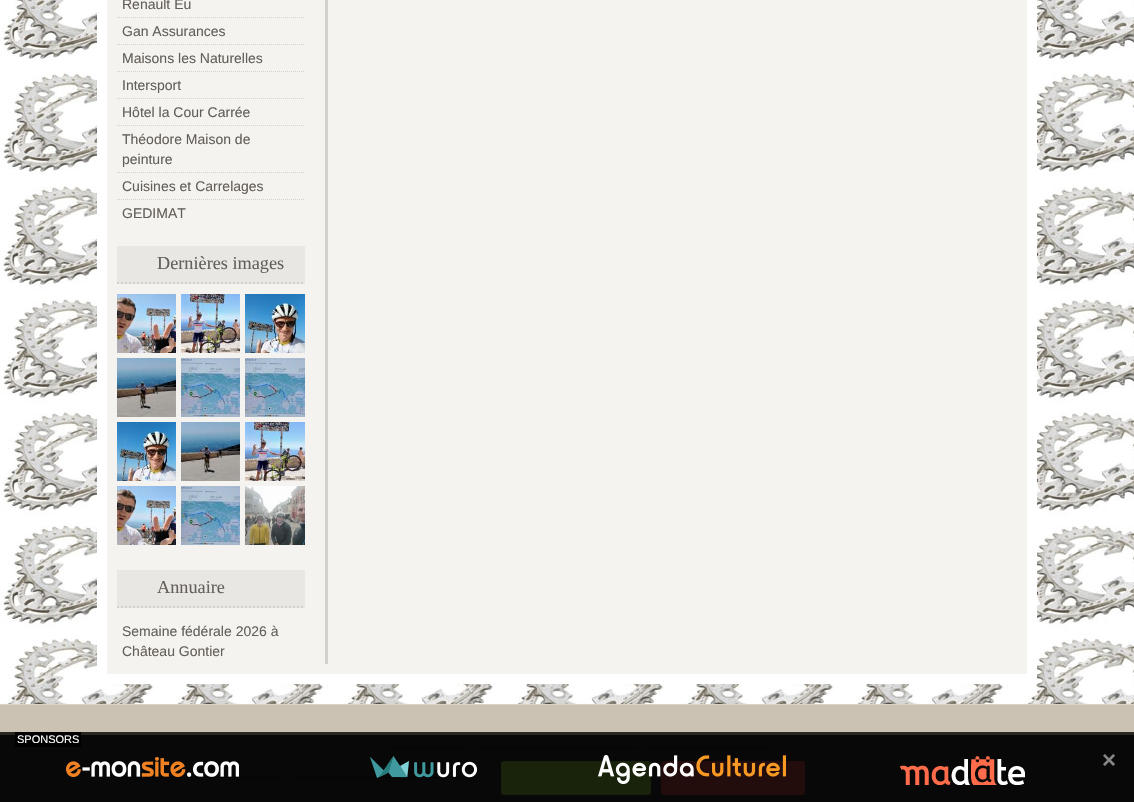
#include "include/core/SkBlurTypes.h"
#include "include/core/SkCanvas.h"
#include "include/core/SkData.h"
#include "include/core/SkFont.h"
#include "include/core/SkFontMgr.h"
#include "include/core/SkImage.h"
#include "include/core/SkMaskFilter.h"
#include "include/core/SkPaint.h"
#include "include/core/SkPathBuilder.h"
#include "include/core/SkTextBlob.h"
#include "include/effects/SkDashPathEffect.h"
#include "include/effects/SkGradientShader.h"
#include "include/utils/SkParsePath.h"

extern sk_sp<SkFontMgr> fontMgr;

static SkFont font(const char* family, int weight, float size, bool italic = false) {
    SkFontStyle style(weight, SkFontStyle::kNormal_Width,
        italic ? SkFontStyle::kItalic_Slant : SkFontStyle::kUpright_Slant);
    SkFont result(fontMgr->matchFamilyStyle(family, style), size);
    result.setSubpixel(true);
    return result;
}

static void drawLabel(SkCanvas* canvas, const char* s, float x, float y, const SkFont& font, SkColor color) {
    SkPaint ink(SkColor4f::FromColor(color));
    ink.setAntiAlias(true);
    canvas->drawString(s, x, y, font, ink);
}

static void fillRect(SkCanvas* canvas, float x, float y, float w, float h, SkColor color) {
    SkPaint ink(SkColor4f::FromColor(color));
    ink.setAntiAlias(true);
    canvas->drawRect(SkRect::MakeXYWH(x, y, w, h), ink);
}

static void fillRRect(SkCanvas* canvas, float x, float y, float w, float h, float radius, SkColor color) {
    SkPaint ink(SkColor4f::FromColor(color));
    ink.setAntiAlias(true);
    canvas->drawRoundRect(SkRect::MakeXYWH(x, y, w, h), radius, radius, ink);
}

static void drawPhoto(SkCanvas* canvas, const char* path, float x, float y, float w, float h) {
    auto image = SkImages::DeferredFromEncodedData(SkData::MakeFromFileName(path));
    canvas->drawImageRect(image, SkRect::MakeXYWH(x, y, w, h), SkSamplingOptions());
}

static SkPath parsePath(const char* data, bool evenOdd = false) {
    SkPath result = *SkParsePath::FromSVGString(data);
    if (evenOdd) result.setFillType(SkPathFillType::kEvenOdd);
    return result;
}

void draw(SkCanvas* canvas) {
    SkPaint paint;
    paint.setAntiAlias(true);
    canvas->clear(0xFFFFFFFF);
    drawPhoto(canvas, "assets/img1.png", 0, 0, 1134, 704);
    fillRect(canvas, 107, 0, 920, 674, 0xFFF4F3F0);
    fillRect(canvas, 1027, 0, 10, 674, 0xFFFFFFFF);
    fillRect(canvas, 112, 674, 925, 10, 0xFFFFFFFF);
    fillRect(canvas, 97, 9, 10, 662, 0xFFFFFFFF);
    fillRect(canvas, 325, 0, 3, 664, 0xFFD4D1CD);
    paint.setStroke(true);
    paint.setStrokeWidth(1);
    paint.setColor(0xFFD4D1CD);
    paint.setPathEffect(SkDashPathEffect::Make({{1, 1}}, 0));
    canvas->drawPath(parsePath("M117 17.5H305"), paint);
    paint.setPathEffect(nullptr);
    SkFont font1 = font("Liberation Sans", 400, 14);
    drawLabel(canvas, "Renault Eu", 122, 9, font1, 0xFF645F58);
    paint.setPathEffect(SkDashPathEffect::Make({{1, 1}}, 0));
    canvas->drawPath(parsePath("M117 44.5H305"), paint);
    paint.setPathEffect(nullptr);
    drawLabel(canvas, "Gan Assurances", 122, 36, font1, 0xFF645F58);
    paint.setPathEffect(SkDashPathEffect::Make({{1, 1}}, 0));
    canvas->drawPath(parsePath("M117 71.5H305"), paint);
    paint.setPathEffect(nullptr);
    drawLabel(canvas, "Maisons les Naturelles", 122, 63, font1, 0xFF645F58);
    paint.setPathEffect(SkDashPathEffect::Make({{1, 1}}, 0));
    canvas->drawPath(parsePath("M117 98.5H305"), paint);
    paint.setPathEffect(nullptr);
    drawLabel(canvas, "Intersport", 122, 90, font1, 0xFF645F58);
    paint.setPathEffect(SkDashPathEffect::Make({{1, 1}}, 0));
    canvas->drawPath(parsePath("M117 125.5H305"), paint);
    paint.setPathEffect(nullptr);
    drawLabel(canvas, "Hôtel la Cour Carrée", 122, 117, font1, 0xFF645F58);
    paint.setPathEffect(SkDashPathEffect::Make({{1, 1}}, 0));
    canvas->drawPath(parsePath("M117 172.5H305"), paint);
    paint.setPathEffect(nullptr);
    drawLabel(canvas, "Théodore Maison de", 122, 144, font1, 0xFF645F58);
    drawLabel(canvas, "peinture", 122, 164, font1, 0xFF645F58);
    paint.setPathEffect(SkDashPathEffect::Make({{1, 1}}, 0));
    canvas->drawPath(parsePath("M117 199.5H305"), paint);
    paint.setPathEffect(nullptr);
    drawLabel(canvas, "Cuisines et Carrelages", 122, 191, font1, 0xFF645F58);
    drawLabel(canvas, "GEDIMAT", 122, 218, font1, 0xFF645F58);
    fillRect(canvas, 117, 246, 188, 38, 0xFFE8E7E4);
    paint.setStrokeWidth(2);
    paint.setPathEffect(SkDashPathEffect::Make({{2, 2}}, 0));
    canvas->drawPath(parsePath("M117 283H305"), paint);
    paint.setPathEffect(nullptr);
    SkFont font2 = font("Liberation Serif", 400, 18.25f);
    drawLabel(canvas, "Dernières images", 157, 269, font2, 0xFF645F58);
    drawPhoto(canvas, "assets/img2.png", 117, 294, 59, 59);
    drawPhoto(canvas, "assets/img3.png", 181, 294, 59, 59);
    drawPhoto(canvas, "assets/img4.png", 245, 294, 60, 59);
    drawPhoto(canvas, "assets/img5.png", 117, 358, 59, 59);
    drawPhoto(canvas, "assets/img6.png", 181, 358, 59, 59);
    drawPhoto(canvas, "assets/img7.png", 245, 358, 60, 59);
    drawPhoto(canvas, "assets/img8.png", 117, 422, 59, 59);
    drawPhoto(canvas, "assets/img5.png", 181, 422, 59, 59);
    drawPhoto(canvas, "assets/img9.png", 245, 422, 60, 59);
    drawPhoto(canvas, "assets/img10.png", 117, 486, 59, 59);
    drawPhoto(canvas, "assets/img11.png", 181, 486, 59, 59);
    drawPhoto(canvas, "assets/img12.png", 245, 486, 60, 59);
    fillRect(canvas, 117, 570, 188, 38, 0xFFE8E7E4);
    paint.setPathEffect(SkDashPathEffect::Make({{2, 2}}, 0));
    canvas->drawPath(parsePath("M117 607H305"), paint);
    paint.setPathEffect(nullptr);
    drawLabel(canvas, "Annuaire", 157, 593, font2, 0xFF645F58);
    drawLabel(canvas, "Semaine fédérale 2026 à", 122, 636, font1, 0xFF645F58);
    drawLabel(canvas, "Château Gontier", 122, 656, font1, 0xFF645F58);
    fillRect(canvas, 0, 705, 1134, 97, 0xFFCBC2B3);
    fillRect(canvas, 0, 704, 1134, 1, 0xFFDAD3C8);
    fillRect(canvas, 388, 747, 81, 1, 0xFF645F58);
    fillRect(canvas, 478, 747, 160, 1, 0xFF645F58);
    fillRect(canvas, 646, 747, 125, 1, 0xFF645F58);
    fillRect(canvas, 107, 777, 176, 1, 0xFF645F58);
    fillRect(canvas, 296, 777, 181, 1, 0xFF645F58);
    fillRect(canvas, 0, 735, 1134, 67, 0xCC000000);
    fillRRect(canvas, 501, 761, 150, 34, 3, 0xFF7DAF3B);
    fillRRect(canvas, 661, 761, 144, 34, 3, 0xFFAF3B3B);
    fillRect(canvas, 0, 732, 1134, 70, 0xCC000000);
    fillRect(canvas, 15, 732, 66, 15, 0xFF000000);
    SkFont font3 = font("Liberation Sans", 400, 11);
    drawLabel(canvas, "SPONSORS", 17, 743, font3, 0xFFFFFFFF);
    drawPhoto(canvas, "assets/img13.png", 66, 757, 173, 20);
    drawPhoto(canvas, "assets/img14.png", 370, 756, 107, 22);
    drawPhoto(canvas, "assets/img15.png", 598, 755, 188, 29);
    drawPhoto(canvas, "assets/img16.png", 900, 756, 125, 29);
    SkFont font4 = font("Liberation Sans", 700, 24);
    drawLabel(canvas, "×", 1102, 768, font4, 0xFF858585);
}
